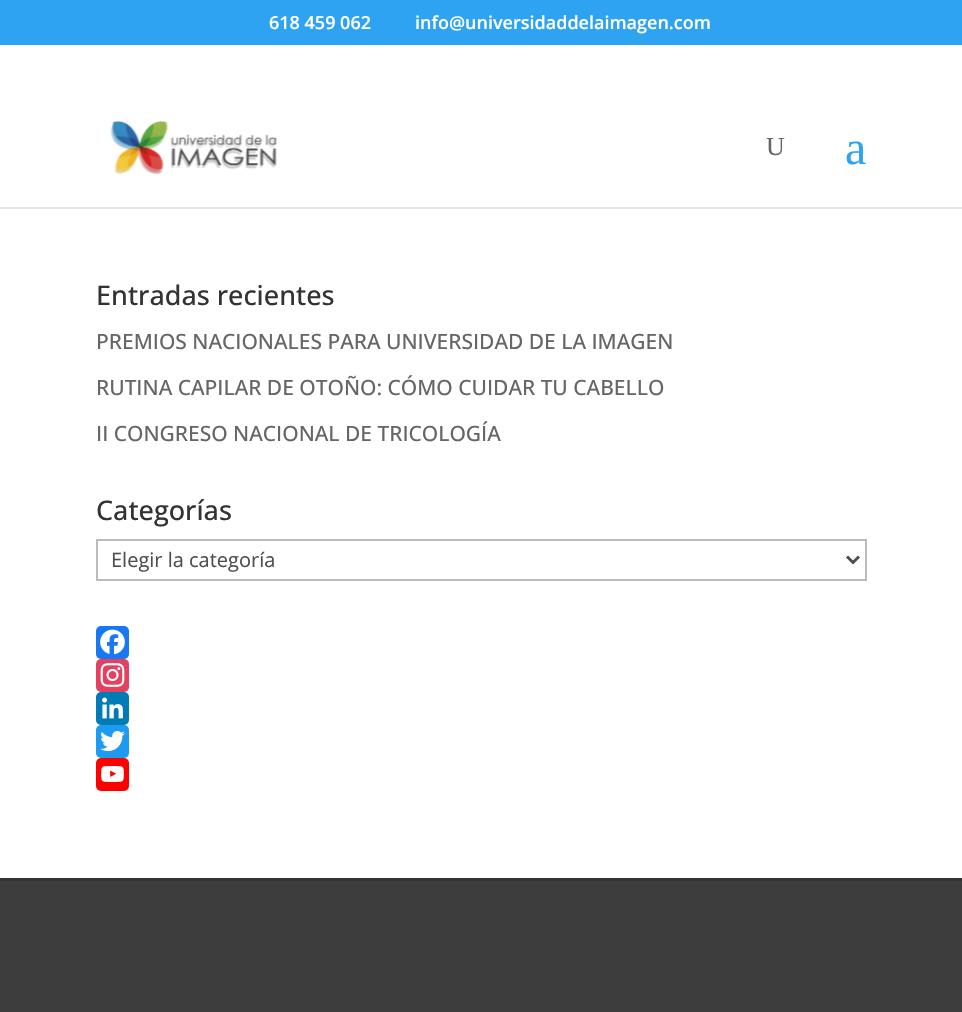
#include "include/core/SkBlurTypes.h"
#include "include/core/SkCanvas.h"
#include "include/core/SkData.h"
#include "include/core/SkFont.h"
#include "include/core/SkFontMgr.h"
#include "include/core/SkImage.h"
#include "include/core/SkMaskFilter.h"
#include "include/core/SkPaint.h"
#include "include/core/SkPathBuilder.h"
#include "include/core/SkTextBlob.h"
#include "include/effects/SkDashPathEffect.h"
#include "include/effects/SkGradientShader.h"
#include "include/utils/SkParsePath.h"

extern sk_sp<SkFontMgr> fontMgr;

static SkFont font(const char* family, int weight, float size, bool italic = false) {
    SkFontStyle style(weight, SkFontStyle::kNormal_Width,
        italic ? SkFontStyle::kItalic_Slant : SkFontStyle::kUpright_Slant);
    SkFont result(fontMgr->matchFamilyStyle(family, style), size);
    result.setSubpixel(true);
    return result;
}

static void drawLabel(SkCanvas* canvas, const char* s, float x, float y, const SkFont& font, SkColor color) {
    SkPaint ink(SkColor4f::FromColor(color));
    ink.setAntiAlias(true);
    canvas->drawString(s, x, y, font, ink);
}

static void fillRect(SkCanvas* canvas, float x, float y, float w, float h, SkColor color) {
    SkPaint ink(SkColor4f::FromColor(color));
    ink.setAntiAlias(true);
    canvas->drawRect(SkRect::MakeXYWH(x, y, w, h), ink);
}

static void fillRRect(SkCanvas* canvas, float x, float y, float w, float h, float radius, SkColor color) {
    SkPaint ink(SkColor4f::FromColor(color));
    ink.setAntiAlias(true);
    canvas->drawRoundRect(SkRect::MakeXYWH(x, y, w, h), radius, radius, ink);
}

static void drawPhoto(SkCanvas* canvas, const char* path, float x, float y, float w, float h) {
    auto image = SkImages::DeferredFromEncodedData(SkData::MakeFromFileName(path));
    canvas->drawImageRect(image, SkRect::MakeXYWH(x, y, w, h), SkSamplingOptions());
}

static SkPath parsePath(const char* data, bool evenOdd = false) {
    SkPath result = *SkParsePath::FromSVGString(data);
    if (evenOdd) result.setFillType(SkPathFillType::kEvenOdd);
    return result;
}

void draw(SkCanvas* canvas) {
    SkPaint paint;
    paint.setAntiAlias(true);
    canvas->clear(0xFFFFFFFF);
    fillRect(canvas, 0, 0, 962, 45, 0xFF2EA3F2);
    SkFont font1 = font("Open Sans", 600, 18);
    drawLabel(canvas, "618 459 062", 269, 29, font1, 0xFFFFFFFF);
    drawLabel(canvas, "info@universidaddelaimagen.com", 415, 29, font1, 0xFFFFFFFF);
    fillRect(canvas, 0, 207, 962, 2, 0x1A000000);
    drawPhoto(canvas, "assets/img1.png", 110, 120, 167, 55);
    SkFont font2 = font("Liberation Serif", 400, 26);
    drawLabel(canvas, "U", 766, 155, font2, 0xFF666666);
    SkFont font3 = font("Liberation Serif", 400, 48);
    drawLabel(canvas, "a", 845, 164, font3, 0xFF2EA3F2);
    SkFont font4 = font("Open Sans", 500, 27);
    drawLabel(canvas, "Entradas recientes", 96, 305, font4, 0xFF333333);
    SkFont font5 = font("Open Sans", 500, 21);
    drawLabel(canvas, "PREMIOS NACIONALES PARA UNIVERSIDAD DE LA IMAGEN", 96, 349, font5, 0xFF666666);
    drawLabel(canvas, "RUTINA CAPILAR DE OTOÑO: CÓMO CUIDAR TU CABELLO", 96, 395, font5, 0xFF666666);
    drawLabel(canvas, "II CONGRESO NACIONAL DE TRICOLOGÍA", 96, 441, font5, 0xFF666666);
    drawLabel(canvas, "Categorías", 96, 520, font4, 0xFF333333);
    paint.setStroke(true);
    paint.setStrokeWidth(2);
    paint.setColor(0xFFBBBBBB);
    canvas->drawRect(SkRect::MakeXYWH(97, 540, 769, 40), paint);
    paint.setStrokeWidth(3);
    paint.setColor(0xFF4E4E4E);
    canvas->drawPath(parsePath("M847 556.5L853 562.5L859 556.5"), paint);
    SkFont font6 = font("Open Sans", 400, 20);
    drawLabel(canvas, "Elegir la categoría", 111, 567, font6, 0xFF4E4E4E);
    fillRRect(canvas, 96, 626, 33, 33, 5, 0xFF1877F2);
    drawPhoto(canvas, "assets/img2.png", 100, 629, 25, 26);
    fillRRect(canvas, 96, 659, 33, 33, 5, 0xFFE4405F);
    drawPhoto(canvas, "assets/img3.png", 100, 663, 25, 24);
    fillRRect(canvas, 96, 692, 33, 33, 5, 0xFF007BB5);
    drawPhoto(canvas, "assets/img4.png", 102, 697, 21, 22);
    fillRRect(canvas, 96, 725, 33, 33, 5, 0xFF1D9BF0);
    drawPhoto(canvas, "assets/img5.png", 100, 730, 25, 22);
    fillRRect(canvas, 96, 758, 33, 33, 5, 0xFFFF0000);
    drawPhoto(canvas, "assets/img6.png", 101, 766, 23, 16);
    fillRect(canvas, 0, 881, 962, 131, 0xFF3D3D3D);
    fillRect(canvas, 0, 878, 962, 3, 0xFF333333);
}
